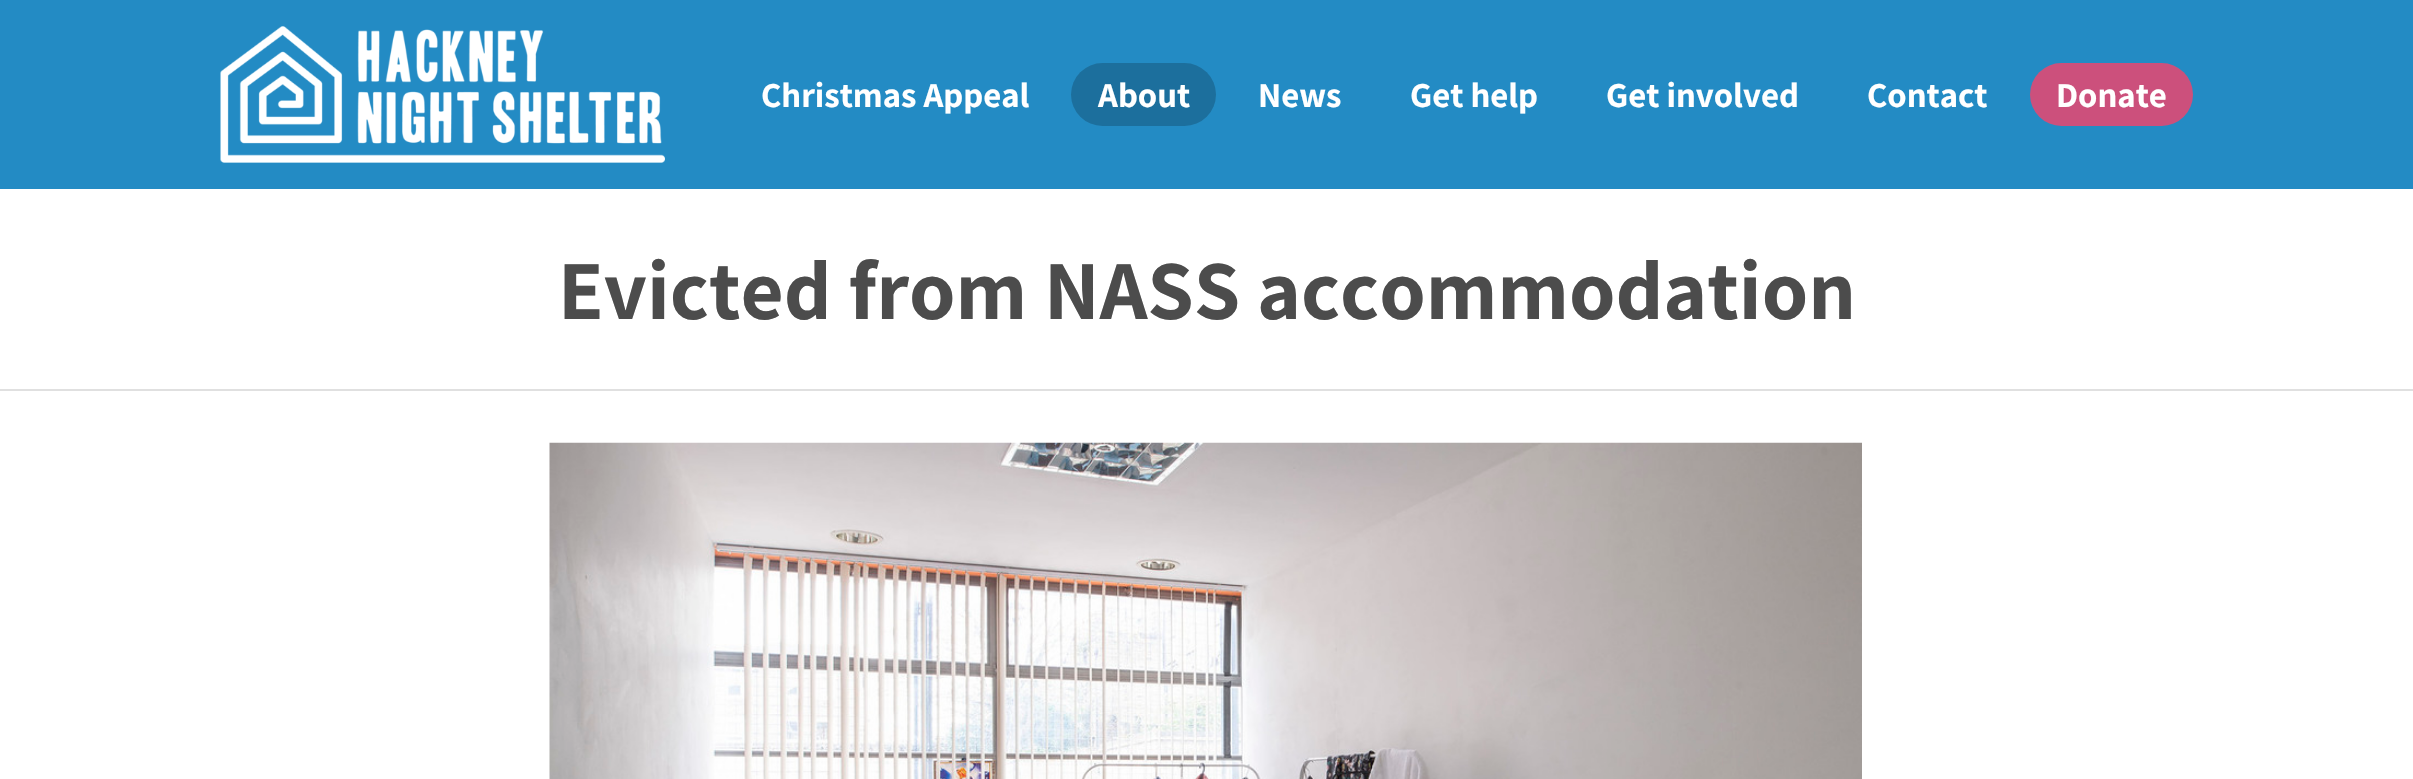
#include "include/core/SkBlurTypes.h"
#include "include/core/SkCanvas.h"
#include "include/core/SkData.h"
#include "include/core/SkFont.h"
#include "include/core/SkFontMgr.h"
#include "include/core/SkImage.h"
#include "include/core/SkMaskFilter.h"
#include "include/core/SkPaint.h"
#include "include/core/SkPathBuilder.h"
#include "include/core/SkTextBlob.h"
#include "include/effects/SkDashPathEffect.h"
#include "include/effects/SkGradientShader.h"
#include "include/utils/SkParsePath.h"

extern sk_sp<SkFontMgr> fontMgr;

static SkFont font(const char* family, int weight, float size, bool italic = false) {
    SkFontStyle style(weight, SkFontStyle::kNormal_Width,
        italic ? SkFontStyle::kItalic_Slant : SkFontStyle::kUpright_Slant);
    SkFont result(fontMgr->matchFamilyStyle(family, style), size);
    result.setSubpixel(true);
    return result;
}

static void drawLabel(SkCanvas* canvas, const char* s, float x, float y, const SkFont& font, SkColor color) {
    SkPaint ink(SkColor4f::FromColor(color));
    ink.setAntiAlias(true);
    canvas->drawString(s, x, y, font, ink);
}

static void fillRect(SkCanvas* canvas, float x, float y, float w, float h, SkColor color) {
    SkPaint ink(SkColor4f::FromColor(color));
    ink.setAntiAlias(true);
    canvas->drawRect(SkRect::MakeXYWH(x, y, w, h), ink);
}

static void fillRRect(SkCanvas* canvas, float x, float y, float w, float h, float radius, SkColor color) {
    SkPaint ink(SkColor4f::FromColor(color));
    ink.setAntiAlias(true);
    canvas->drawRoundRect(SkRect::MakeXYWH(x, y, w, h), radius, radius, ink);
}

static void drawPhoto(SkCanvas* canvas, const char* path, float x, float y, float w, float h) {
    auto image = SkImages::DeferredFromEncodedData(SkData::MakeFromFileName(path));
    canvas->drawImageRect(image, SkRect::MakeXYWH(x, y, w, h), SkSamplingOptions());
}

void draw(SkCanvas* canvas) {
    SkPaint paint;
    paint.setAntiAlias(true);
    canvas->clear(0xFFFFFFFF);
    fillRect(canvas, 0, 0, 2413, 189, 0xFF238BC4);
    drawPhoto(canvas, "assets/img1.png", 220, 26, 445, 137);
    SkFont font1 = font("Assistant", 700, 35);
    drawLabel(canvas, "Christmas Appeal", 761, 107, font1, 0xFFFFFFFF);
    fillRRect(canvas, 1071, 63, 145, 63, 31.5f, 0xFF1C6F9D);
    drawLabel(canvas, "About", 1098, 107, font1, 0xFFFFFFFF);
    drawLabel(canvas, "News", 1258, 107, font1, 0xFFFFFFFF);
    drawLabel(canvas, "Get help", 1410, 107, font1, 0xFFFFFFFF);
    drawLabel(canvas, "Get involved", 1606, 107, font1, 0xFFFFFFFF);
    drawLabel(canvas, "Contact", 1867, 107, font1, 0xFFFFFFFF);
    fillRRect(canvas, 2030, 63, 163, 63, 31.5f, 0xFFCC507C);
    drawLabel(canvas, "Donate", 2056, 107, font1, 0xFFFFFFFF);
    fillRect(canvas, 0, 389, 2413, 2, 0xFFE0E0E0);
    SkFont font2 = font("Assistant", 700, 84);
    drawLabel(canvas, "Evicted from NASS accommodation", 558, 319, font2, 0xFF4C4C4C);
    drawPhoto(canvas, "assets/img2.png", 549, 442, 1313, 337);
}
